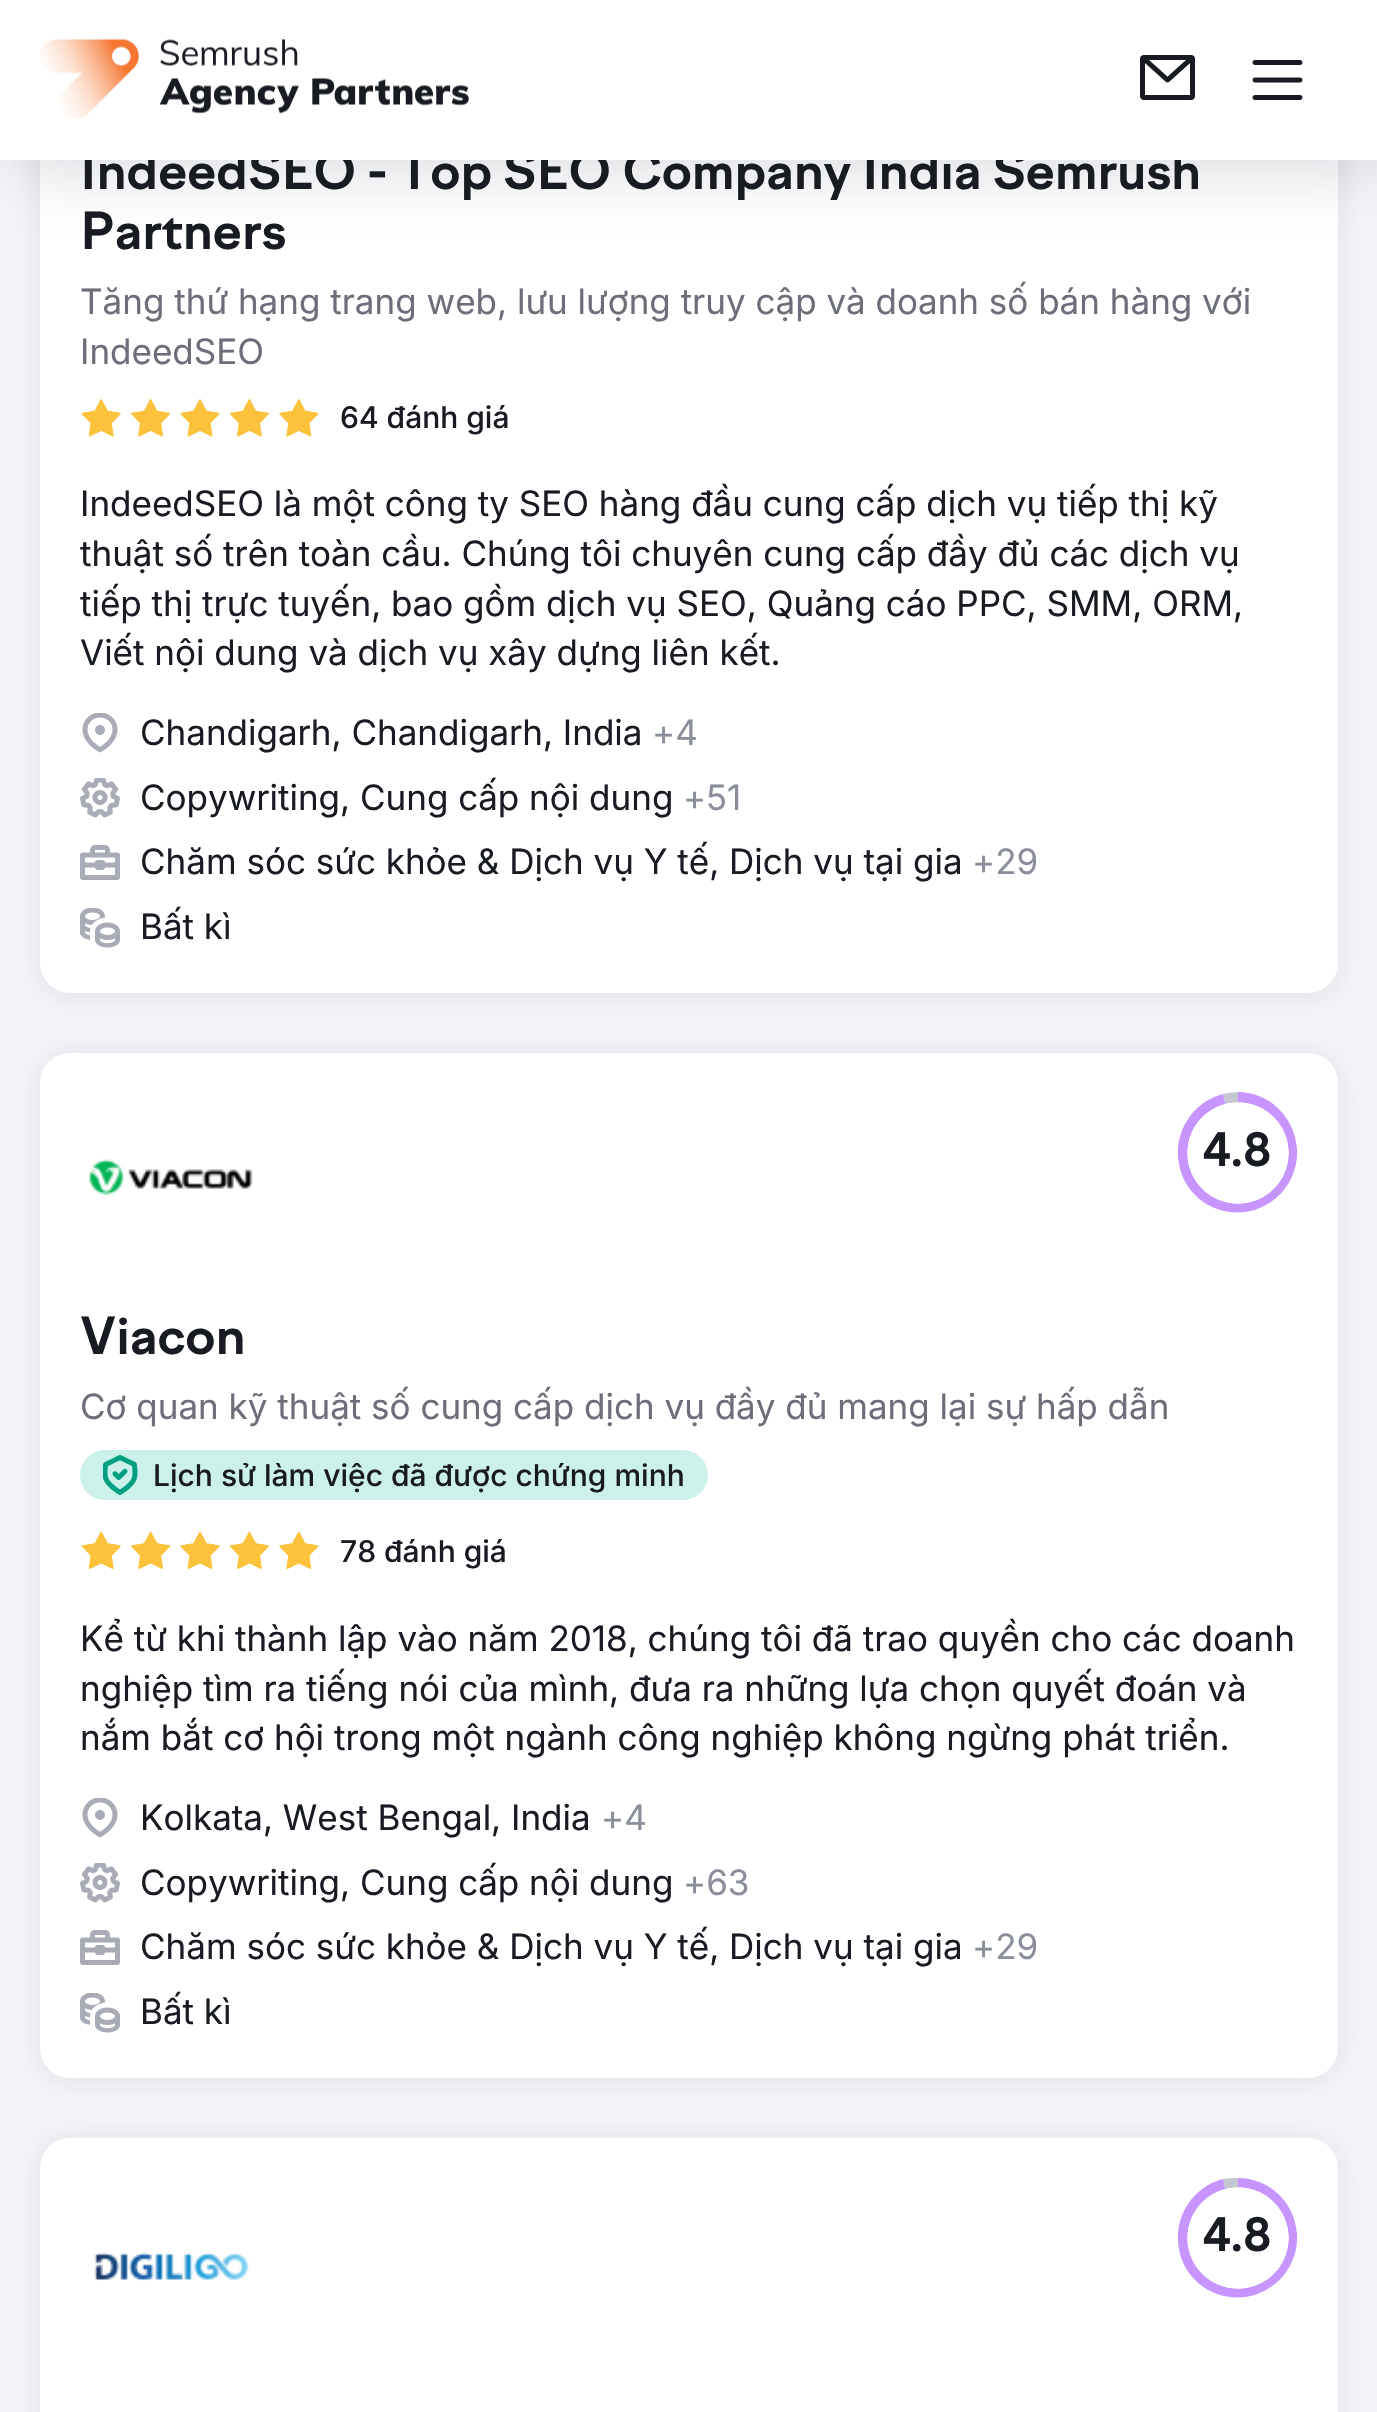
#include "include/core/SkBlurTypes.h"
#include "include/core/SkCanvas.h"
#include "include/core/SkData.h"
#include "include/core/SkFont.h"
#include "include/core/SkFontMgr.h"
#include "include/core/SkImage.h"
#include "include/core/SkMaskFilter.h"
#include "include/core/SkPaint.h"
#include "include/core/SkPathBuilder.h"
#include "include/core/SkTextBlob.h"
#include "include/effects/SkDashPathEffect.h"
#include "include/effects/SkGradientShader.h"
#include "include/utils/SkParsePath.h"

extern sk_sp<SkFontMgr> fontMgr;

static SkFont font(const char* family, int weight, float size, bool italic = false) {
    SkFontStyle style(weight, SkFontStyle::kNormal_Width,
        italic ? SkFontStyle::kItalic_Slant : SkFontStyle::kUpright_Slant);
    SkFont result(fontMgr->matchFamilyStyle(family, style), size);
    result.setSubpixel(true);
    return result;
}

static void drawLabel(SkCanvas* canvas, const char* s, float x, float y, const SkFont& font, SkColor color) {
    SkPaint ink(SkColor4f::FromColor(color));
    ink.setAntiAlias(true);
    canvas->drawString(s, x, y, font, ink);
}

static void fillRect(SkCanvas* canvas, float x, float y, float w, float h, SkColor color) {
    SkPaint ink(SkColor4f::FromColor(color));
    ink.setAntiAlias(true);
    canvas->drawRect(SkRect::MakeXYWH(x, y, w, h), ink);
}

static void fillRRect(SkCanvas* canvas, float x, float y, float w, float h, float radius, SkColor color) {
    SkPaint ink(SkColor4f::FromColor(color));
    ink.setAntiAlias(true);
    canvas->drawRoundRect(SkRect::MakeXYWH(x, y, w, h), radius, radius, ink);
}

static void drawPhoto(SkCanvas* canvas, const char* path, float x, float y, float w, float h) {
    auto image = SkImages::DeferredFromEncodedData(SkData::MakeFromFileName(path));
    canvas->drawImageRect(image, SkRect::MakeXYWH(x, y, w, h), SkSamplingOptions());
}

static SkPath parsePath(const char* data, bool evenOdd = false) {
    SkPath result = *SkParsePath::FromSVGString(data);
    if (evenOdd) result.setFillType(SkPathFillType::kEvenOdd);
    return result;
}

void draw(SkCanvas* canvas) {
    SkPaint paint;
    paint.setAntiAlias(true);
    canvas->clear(0xFFF4F5F9);
    paint.setColor(0x1A191B23);
    paint.setMaskFilter(SkMaskFilter::MakeBlur(kNormal_SkBlurStyle, 15));
    canvas->drawRoundRect(SkRect::MakeXYWH(40, -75, 1298, 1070), 30, 30, paint);
    paint.setMaskFilter(nullptr);
    fillRRect(canvas, 40, -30, 1298, 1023, 30, 0xFFFFFFFF);
    paint.setColor(0x4D898D9A);
    paint.setMaskFilter(SkMaskFilter::MakeBlur(kNormal_SkBlurStyle, 31));
    canvas->drawRect(SkRect::MakeXYWH(13, 13, 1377, 160), paint);
    paint.setMaskFilter(nullptr);
    SkFont font1 = font("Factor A", 700, 50);
    drawLabel(canvas, "IndeedSEO - Top SEO Company India Semrush", 80, 189, font1, 0xFF191B23);
    fillRect(canvas, 0, 0, 1377, 160, 0xFFFFFFFF);
    drawPhoto(canvas, "assets/img1.png", 40, 39, 429, 80);
    drawPhoto(canvas, "assets/img2.png", 1140, 55, 55, 45);
    drawPhoto(canvas, "assets/img3.png", 1252, 60, 51, 40);
    drawLabel(canvas, "Partners", 80, 249, font1, 0xFF191B23);
    SkFont font2 = font("Inter", 400, 35);
    drawLabel(canvas, "Tăng thứ hạng trang web, lưu lượng truy cập và doanh số bán hàng với", 80, 314, font2, 0xFF6C6E79);
    drawLabel(canvas, "IndeedSEO", 80, 364, font2, 0xFF6C6E79);
    drawPhoto(canvas, "assets/img4.png", 81, 399, 238, 38);
    SkFont font3 = font("Inter", 500, 30);
    drawLabel(canvas, "64 đánh giá", 340, 428, font3, 0xFF191B23);
    drawLabel(canvas, "IndeedSEO là một công ty SEO hàng đầu cung cấp dịch vụ tiếp thị kỹ", 80, 516, font2, 0xFF191B23);
    drawLabel(canvas, "thuật số trên toàn cầu. Chúng tôi chuyên cung cấp đầy đủ các dịch vụ", 80, 566, font2, 0xFF191B23);
    drawLabel(canvas, "tiếp thị trực tuyến, bao gồm dịch vụ SEO, Quảng cáo PPC, SMM, ORM,", 80, 616, font2, 0xFF191B23);
    drawLabel(canvas, "Viết nội dung và dịch vụ xây dựng liên kết.", 80, 665, font2, 0xFF191B23);
    drawPhoto(canvas, "assets/img5.png", 82, 713, 36, 40);
    drawLabel(canvas, "Chandigarh, Chandigarh, India", 140, 745, font2, 0xFF191B23);
    drawLabel(canvas, "+4", 652, 745, font2, 0xFF8A8E9B);
    drawPhoto(canvas, "assets/img6.png", 80, 778, 40, 40);
    drawLabel(canvas, "Copywriting, Cung cấp nội dung", 140, 810, font2, 0xFF191B23);
    drawLabel(canvas, "+51", 683, 810, font2, 0xFF8A8E9B);
    drawPhoto(canvas, "assets/img7.png", 80, 845, 40, 35);
    drawLabel(canvas, "Chăm sóc sức khỏe & Dịch vụ Y tế, Dịch vụ tại gia", 140, 874, font2, 0xFF191B23);
    drawLabel(canvas, "+29", 972, 874, font2, 0xFF8A8E9B);
    drawPhoto(canvas, "assets/img8.png", 80, 908, 40, 40);
    drawLabel(canvas, "Bất kì", 140, 939, font2, 0xFF191B23);
    paint.setColor(0x1A191B23);
    paint.setMaskFilter(SkMaskFilter::MakeBlur(kNormal_SkBlurStyle, 15));
    canvas->drawRoundRect(SkRect::MakeXYWH(40, 1055, 1298, 1025), 30, 30, paint);
    paint.setMaskFilter(nullptr);
    fillRRect(canvas, 40, 1053, 1298, 1025, 30, 0xFFFFFFFF);
    paint.setColor(0xFFC695FF);
    canvas->drawPath(parsePath("M1238 1152V1092C1269 1092 1295 1117 1297 1149C1299 1180 1276 1208 1245 1212C1214 1216 1184 1195 1179 1164C1173 1133 1192 1102 1223 1094Z"), paint);
    paint.setColor(0xFFC4C7CF);
    canvas->drawPath(parsePath("M1238 1152L1223 1094C1227 1093 1232 1092 1238 1092Z"), paint);
    {
        const SkColor colors[] = {0xFFFFFFFF, 0x00FFFFFF, 0x00000000};
        const float stops[] = {0.84f, 0.85f, 1};
        paint.setShader(SkGradientShader::MakeRadial({1238, 1153}, 60, colors, stops, 3, SkTileMode::kClamp));
        paint.setAlpha(255);
    }
    canvas->drawRect(SkRect::MakeXYWH(1187, 1102, 102, 102), paint);
    SkFont font4 = font("Factor A", 700, 45);
    drawLabel(canvas, "4.8", 1203, 1166, font4, 0xFF191B23);
    drawPhoto(canvas, "assets/img9.png", 88, 1159, 165, 36);
    drawLabel(canvas, "Viacon", 80, 1354, font1, 0xFF191B23);
    drawLabel(canvas, "Cơ quan kỹ thuật số cung cấp dịch vụ đầy đủ mang lại sự hấp dẫn", 80, 1419, font2, 0xFF6C6E79);
    fillRRect(canvas, 80, 1450, 628, 50, 25, 0xFFCCF1EA);
    drawPhoto(canvas, "assets/img10.png", 103, 1455, 35, 40);
    drawLabel(canvas, "Lịch sử làm việc đã được chứng minh", 153, 1486, font3, 0xFF191B23);
    drawPhoto(canvas, "assets/img11.png", 81, 1531, 238, 38);
    drawLabel(canvas, "78 đánh giá", 340, 1562, font3, 0xFF191B23);
    drawLabel(canvas, "Kể từ khi thành lập vào năm 2018, chúng tôi đã trao quyền cho các doanh", 80, 1651, font2, 0xFF191B23);
    drawLabel(canvas, "nghiệp tìm ra tiếng nói của mình, đưa ra những lựa chọn quyết đoán và", 80, 1701, font2, 0xFF191B23);
    drawLabel(canvas, "nắm bắt cơ hội trong một ngành công nghiệp không ngừng phát triển.", 80, 1750, font2, 0xFF191B23);
    drawPhoto(canvas, "assets/img5.png", 82, 1798, 36, 40);
    drawLabel(canvas, "Kolkata, West Bengal, India", 140, 1830, font2, 0xFF191B23);
    drawLabel(canvas, "+4", 601, 1830, font2, 0xFF8A8E9B);
    drawPhoto(canvas, "assets/img6.png", 80, 1863, 40, 40);
    drawLabel(canvas, "Copywriting, Cung cấp nội dung", 140, 1895, font2, 0xFF191B23);
    drawLabel(canvas, "+63", 683, 1895, font2, 0xFF8A8E9B);
    drawPhoto(canvas, "assets/img7.png", 80, 1930, 40, 35);
    drawLabel(canvas, "Chăm sóc sức khỏe & Dịch vụ Y tế, Dịch vụ tại gia", 140, 1959, font2, 0xFF191B23);
    drawLabel(canvas, "+29", 972, 1959, font2, 0xFF8A8E9B);
    drawPhoto(canvas, "assets/img8.png", 80, 1993, 40, 40);
    drawLabel(canvas, "Bất kì", 140, 2024, font2, 0xFF191B23);
    paint.setShader(nullptr);
    paint.setColor(0x1A191B23);
    paint.setMaskFilter(SkMaskFilter::MakeBlur(kNormal_SkBlurStyle, 15));
    canvas->drawRoundRect(SkRect::MakeXYWH(40, 2140, 1298, 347), 30, 30, paint);
    paint.setMaskFilter(nullptr);
    fillRRect(canvas, 40, 2138, 1298, 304, 30, 0xFFFFFFFF);
    paint.setColor(0xFFC695FF);
    canvas->drawPath(parsePath("M1238 2238V2178C1269 2178 1295 2202 1297 2234C1299 2265 1276 2293 1245 2297C1214 2301 1184 2280 1179 2249C1173 2218 1192 2187 1223 2179Z"), paint);
    paint.setColor(0xFFC4C7CF);
    canvas->drawPath(parsePath("M1238 2238L1223 2179C1227 2178 1232 2178 1238 2178Z"), paint);
    {
        const SkColor colors[] = {0xFFFFFFFF, 0x00FFFFFF, 0x00000000};
        const float stops[] = {0.84f, 0.85f, 1};
        paint.setShader(SkGradientShader::MakeRadial({1238, 2238}, 60, colors, stops, 3, SkTileMode::kClamp));
        paint.setAlpha(255);
    }
    canvas->drawRect(SkRect::MakeXYWH(1187, 2187, 102, 102), paint);
    drawLabel(canvas, "4.8", 1203, 2251, font4, 0xFF191B23);
    drawPhoto(canvas, "assets/img12.png", 94, 2252, 155, 29);
}
